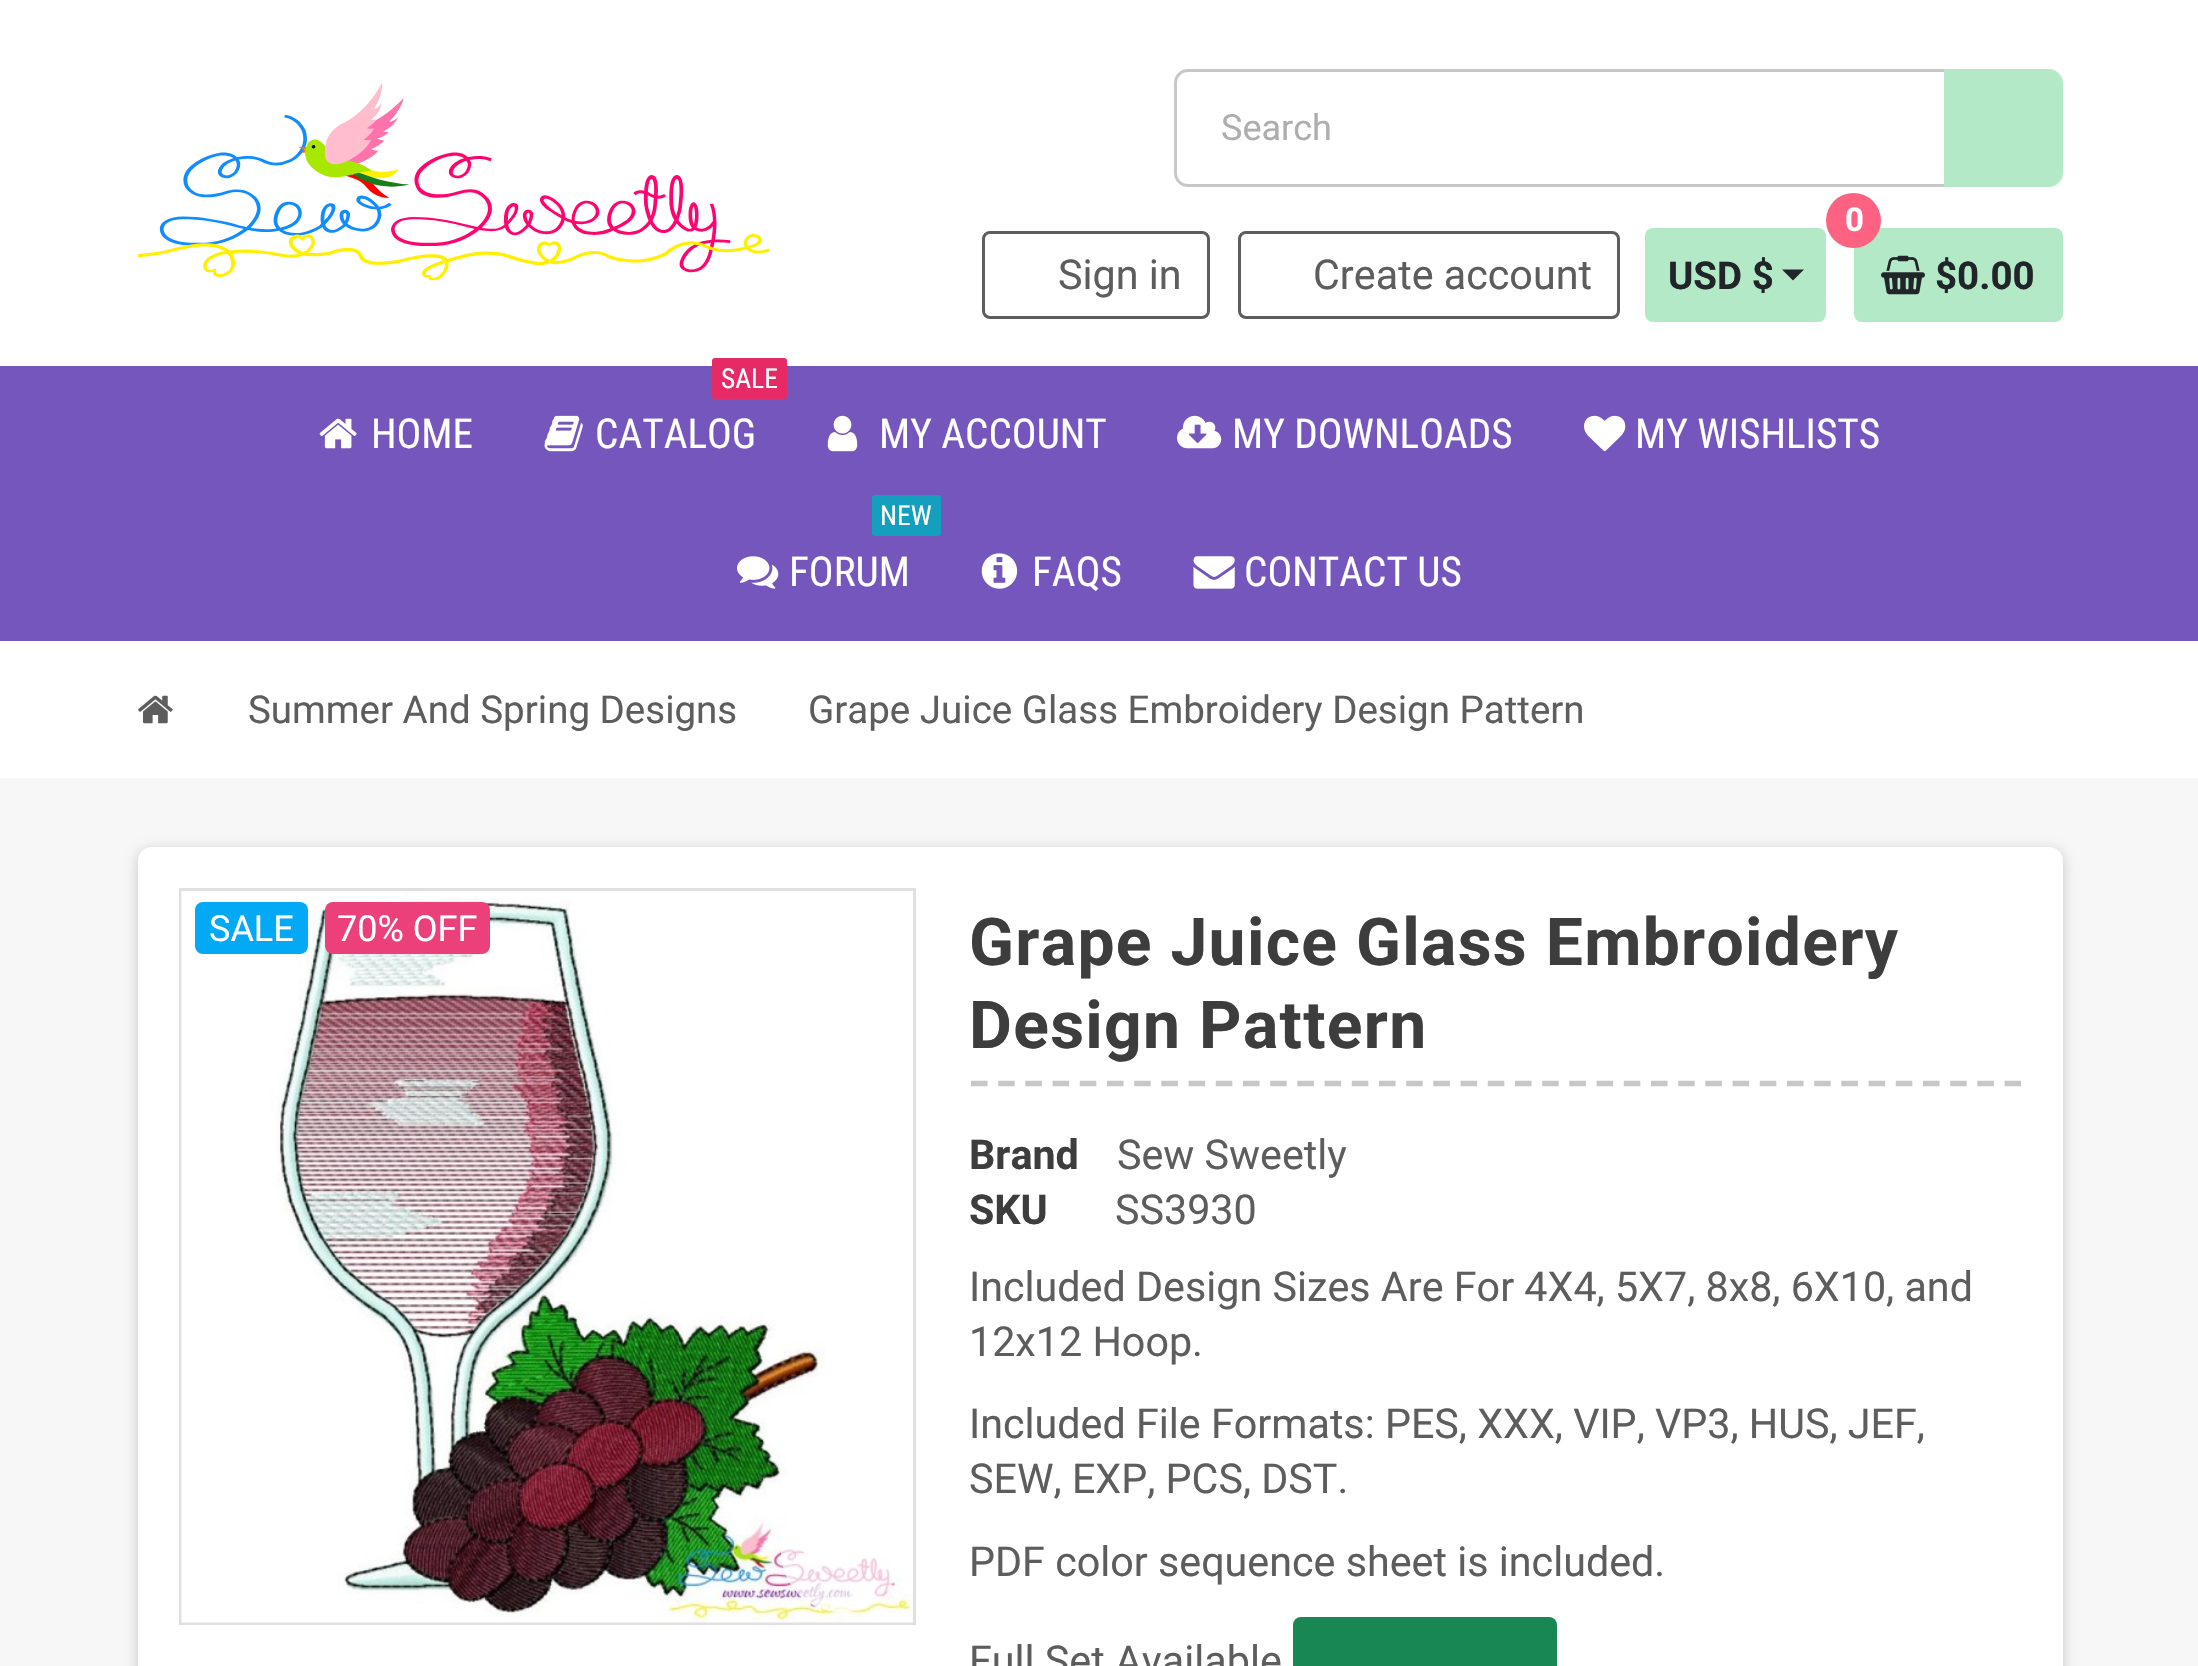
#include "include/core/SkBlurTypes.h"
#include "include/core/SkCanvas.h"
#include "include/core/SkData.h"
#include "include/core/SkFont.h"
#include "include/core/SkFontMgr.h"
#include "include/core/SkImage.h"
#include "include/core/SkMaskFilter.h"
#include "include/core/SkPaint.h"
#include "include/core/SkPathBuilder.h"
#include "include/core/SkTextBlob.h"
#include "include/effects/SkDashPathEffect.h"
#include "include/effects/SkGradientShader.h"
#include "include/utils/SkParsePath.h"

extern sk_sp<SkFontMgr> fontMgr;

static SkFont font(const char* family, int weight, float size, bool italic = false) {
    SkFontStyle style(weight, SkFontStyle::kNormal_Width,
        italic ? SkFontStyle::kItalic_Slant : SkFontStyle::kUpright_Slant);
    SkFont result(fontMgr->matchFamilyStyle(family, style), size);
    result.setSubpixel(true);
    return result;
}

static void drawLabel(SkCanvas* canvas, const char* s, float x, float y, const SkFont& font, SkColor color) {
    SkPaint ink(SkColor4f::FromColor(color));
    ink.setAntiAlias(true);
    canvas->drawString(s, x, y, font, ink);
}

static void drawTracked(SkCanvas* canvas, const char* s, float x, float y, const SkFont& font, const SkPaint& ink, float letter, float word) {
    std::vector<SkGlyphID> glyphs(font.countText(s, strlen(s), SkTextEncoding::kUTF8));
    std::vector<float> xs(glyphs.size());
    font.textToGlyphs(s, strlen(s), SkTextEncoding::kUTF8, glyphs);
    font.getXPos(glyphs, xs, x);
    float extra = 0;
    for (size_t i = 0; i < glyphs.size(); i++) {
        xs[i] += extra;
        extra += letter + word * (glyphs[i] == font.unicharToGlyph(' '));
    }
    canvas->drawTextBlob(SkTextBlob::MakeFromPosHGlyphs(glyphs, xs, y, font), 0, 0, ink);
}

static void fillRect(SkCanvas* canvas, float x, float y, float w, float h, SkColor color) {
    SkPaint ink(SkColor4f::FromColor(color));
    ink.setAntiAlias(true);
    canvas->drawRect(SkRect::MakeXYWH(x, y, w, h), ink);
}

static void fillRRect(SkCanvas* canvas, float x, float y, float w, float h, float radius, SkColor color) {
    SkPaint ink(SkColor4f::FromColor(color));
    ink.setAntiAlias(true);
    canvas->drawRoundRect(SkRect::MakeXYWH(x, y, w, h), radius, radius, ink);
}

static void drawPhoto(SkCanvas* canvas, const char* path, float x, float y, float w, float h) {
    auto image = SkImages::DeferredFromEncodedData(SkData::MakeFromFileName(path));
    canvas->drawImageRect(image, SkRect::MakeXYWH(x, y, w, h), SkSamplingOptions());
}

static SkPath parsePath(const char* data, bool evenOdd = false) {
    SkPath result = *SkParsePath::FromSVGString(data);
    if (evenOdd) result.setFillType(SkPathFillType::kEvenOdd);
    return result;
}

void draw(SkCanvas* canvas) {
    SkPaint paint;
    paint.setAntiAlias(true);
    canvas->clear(0xFFFFFFFF);
    drawPhoto(canvas, "assets/img1.png", 138, 83, 632, 198);
    paint.setStroke(true);
    paint.setStrokeWidth(3);
    paint.setColor(0xFFC7C7C7);
    canvas->drawRoundRect(SkRect::MakeXYWH(1175.5f, 70.5f, 883, 115), 12.5f, 12.5f, paint);
    SkFont font1 = font("Roboto", 400, 36);
    drawLabel(canvas, "Search", 1221, 140, font1, 0xFFAEAEAE);
    paint.setStroke(false);
    paint.setColor(0xFFB3E9C7);
    canvas->drawPath(parsePath("M1944 69H2049C2056.5 69 2063 75.5 2063 83V173C2063 180.5 2056.5 187 2049 187H1944Z"), paint);
    paint.setStroke(true);
    paint.setColor(0xFF5D5D5D);
    canvas->drawRoundRect(SkRect::MakeXYWH(983.5f, 232.5f, 225, 85), 6.5f, 6.5f, paint);
    SkFont font2 = font("Roboto", 400, 41.25f);
    drawLabel(canvas, "Sign in", 1058, 289, font2, 0xFF5D5D5D);
    canvas->drawRoundRect(SkRect::MakeXYWH(1239.5f, 232.5f, 379, 85), 6.5f, 6.5f, paint);
    drawLabel(canvas, "Create account", 1313, 289, font2, 0xFF5D5D5D);
    fillRRect(canvas, 1645, 228, 181, 94, 8, 0xFFB3E9C7);
    SkFont font3 = font("Roboto", 700, 38.5f);
    drawLabel(canvas, "USD $", 1668, 289, font3, 0xFF212529);
    paint.setStroke(false);
    paint.setColor(0xFF212529);
    canvas->drawPath(parsePath("M1782 269.5H1804L1793 280.5Z"), paint);
    fillRRect(canvas, 1854, 228, 209, 94, 8, 0xFFB3E9C7);
    paint.setColor(0xFFFD6282);
    canvas->drawCircle(1853.5f, 220.5f, 27.5f, paint);
    SkFont font4 = font("Roboto", 700, 33);
    drawLabel(canvas, "0", 1845, 231, font4, 0xFFFFFFFF);
    drawPhoto(canvas, "assets/img2.png", 1881, 255, 44, 40);
    drawLabel(canvas, "$0.00", 1935, 289, font3, 0xFF212529);
    fillRect(canvas, 0, 366, 2198, 275, 0xFF7556BD);
    drawPhoto(canvas, "assets/img3.png", 319, 418, 38, 31);
    SkFont font5 = font("Roboto Condensed", 400, 41.25f);
    drawLabel(canvas, "HOME", 371, 448, font5, 0xFFFFFFFF);
    fillRRect(canvas, 712, 358, 75, 41, 3, 0xFFE62A65);
    SkFont font6 = font("Roboto Condensed", 400, 27.5f);
    drawLabel(canvas, "SALE", 721, 388, font6, 0xFFFFFFFF);
    drawPhoto(canvas, "assets/img4.png", 544, 415, 39, 37);
    drawLabel(canvas, "CATALOG", 595, 448, font5, 0xFFFFFFFF);
    drawPhoto(canvas, "assets/img5.png", 827, 415, 31, 37);
    drawLabel(canvas, "MY ACCOUNT", 879, 448, font5, 0xFFFFFFFF);
    drawPhoto(canvas, "assets/img6.png", 1177, 415, 45, 34);
    drawLabel(canvas, "MY DOWNLOADS", 1232, 448, font5, 0xFFFFFFFF);
    drawPhoto(canvas, "assets/img7.png", 1584, 415, 42, 37);
    drawLabel(canvas, "MY WISHLISTS", 1635, 448, font5, 0xFFFFFFFF);
    fillRRect(canvas, 872, 495, 69, 41, 3, 0xFF139FBD);
    drawLabel(canvas, "NEW", 880, 525, font6, 0xFFFFFFFF);
    drawPhoto(canvas, "assets/img8.png", 737, 556, 42, 33);
    drawLabel(canvas, "FORUM", 789, 586, font5, 0xFFFFFFFF);
    drawPhoto(canvas, "assets/img9.png", 981, 553, 37, 36);
    drawLabel(canvas, "FAQS", 1032, 586, font5, 0xFFFFFFFF);
    drawPhoto(canvas, "assets/img10.png", 1193, 556, 42, 33);
    drawLabel(canvas, "CONTACT US", 1244, 586, font5, 0xFFFFFFFF);
    fillRect(canvas, 0, 778, 2198, 888, 0xFFF7F7F7);
    drawPhoto(canvas, "assets/img11.png", 138, 695, 35, 29);
    SkFont font7 = font("Roboto", 400, 38.5f);
    drawLabel(canvas, "Summer And Spring Designs", 248, 723, font7, 0xFF5D5D5D);
    drawLabel(canvas, "Grape Juice Glass Embroidery Design Pattern", 808, 723, font7, 0xFF5D5D5D);
    paint.setColor(0x33000000);
    paint.setMaskFilter(SkMaskFilter::MakeBlur(kNormal_SkBlurStyle, 7));
    canvas->drawRoundRect(SkRect::MakeXYWH(138, 850, 1925, 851), 14, 14, paint);
    paint.setMaskFilter(nullptr);
    fillRRect(canvas, 138, 847, 1925, 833, 14, 0xFFFFFFFF);
    paint.setStroke(true);
    paint.setColor(0xFFE0E0E0);
    canvas->drawRect(SkRect::MakeXYWH(180.5f, 889.5f, 734, 734), paint);
    drawPhoto(canvas, "assets/img12.png", 181, 891, 732, 732);
    paint.setStroke(false);
    paint.setColor(0xB3FFFFFF);
    canvas->drawCircle(841.5f, 1551.5f, 60.5f, paint);
    fillRRect(canvas, 195, 902, 113, 52, 8, 0xFF03A9F4);
    drawLabel(canvas, "SALE", 209, 941, font1, 0xFFFFFFFF);
    fillRRect(canvas, 325, 902, 165, 52, 8, 0xFFEC407A);
    drawLabel(canvas, "70% OFF", 337, 941, font1, 0xFFFFFFFF);
    paint.setStroke(true);
    paint.setStrokeWidth(5.5f);
    paint.setColor(0xFFC7C7C7);
    paint.setPathEffect(SkDashPathEffect::Make({{16.5f, 10.7f}}, 0));
    canvas->drawPath(parsePath("M971 1083.5H2021"), paint);
    paint.setPathEffect(nullptr);
    SkFont font8 = font("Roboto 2", 700, 66);
    paint.setStroke(false);
    paint.setColor(0xFF3D3D3D);
    drawTracked(canvas, "Grape Juice Glass Embroidery", 969, 965, font8, paint, 1.3f, 0);
    drawTracked(canvas, "Design Pattern", 969, 1048, font8, paint, 1.3f, 0);
    SkFont font9 = font("Roboto", 700, 41.25f);
    drawLabel(canvas, "Brand", 969, 1169, font9, 0xFF3D3D3D);
    drawLabel(canvas, "Sew Sweetly", 1117, 1169, font2, 0xFF5D5D5D);
    drawLabel(canvas, "SKU", 969, 1224, font9, 0xFF3D3D3D);
    drawLabel(canvas, "SS3930", 1115, 1224, font2, 0xFF5D5D5D);
    drawLabel(canvas, "Included Design Sizes Are For 4X4, 5X7, 8x8, 6X10, and", 969, 1301, font2, 0xFF5D5D5D);
    drawLabel(canvas, "12x12 Hoop.", 969, 1356, font2, 0xFF5D5D5D);
    drawLabel(canvas, "Included File Formats: PES, XXX, VIP, VP3, HUS, JEF,", 969, 1438, font2, 0xFF5D5D5D);
    drawLabel(canvas, "SEW, EXP, PCS, DST.", 969, 1493, font2, 0xFF5D5D5D);
    drawLabel(canvas, "PDF color sequence sheet is included.", 969, 1576, font2, 0xFF5D5D5D);
    drawLabel(canvas, "Full Set Available", 969, 1675, font2, 0xFF5D5D5D);
    fillRRect(canvas, 1293, 1617, 264, 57, 8, 0xFF198754);
}
